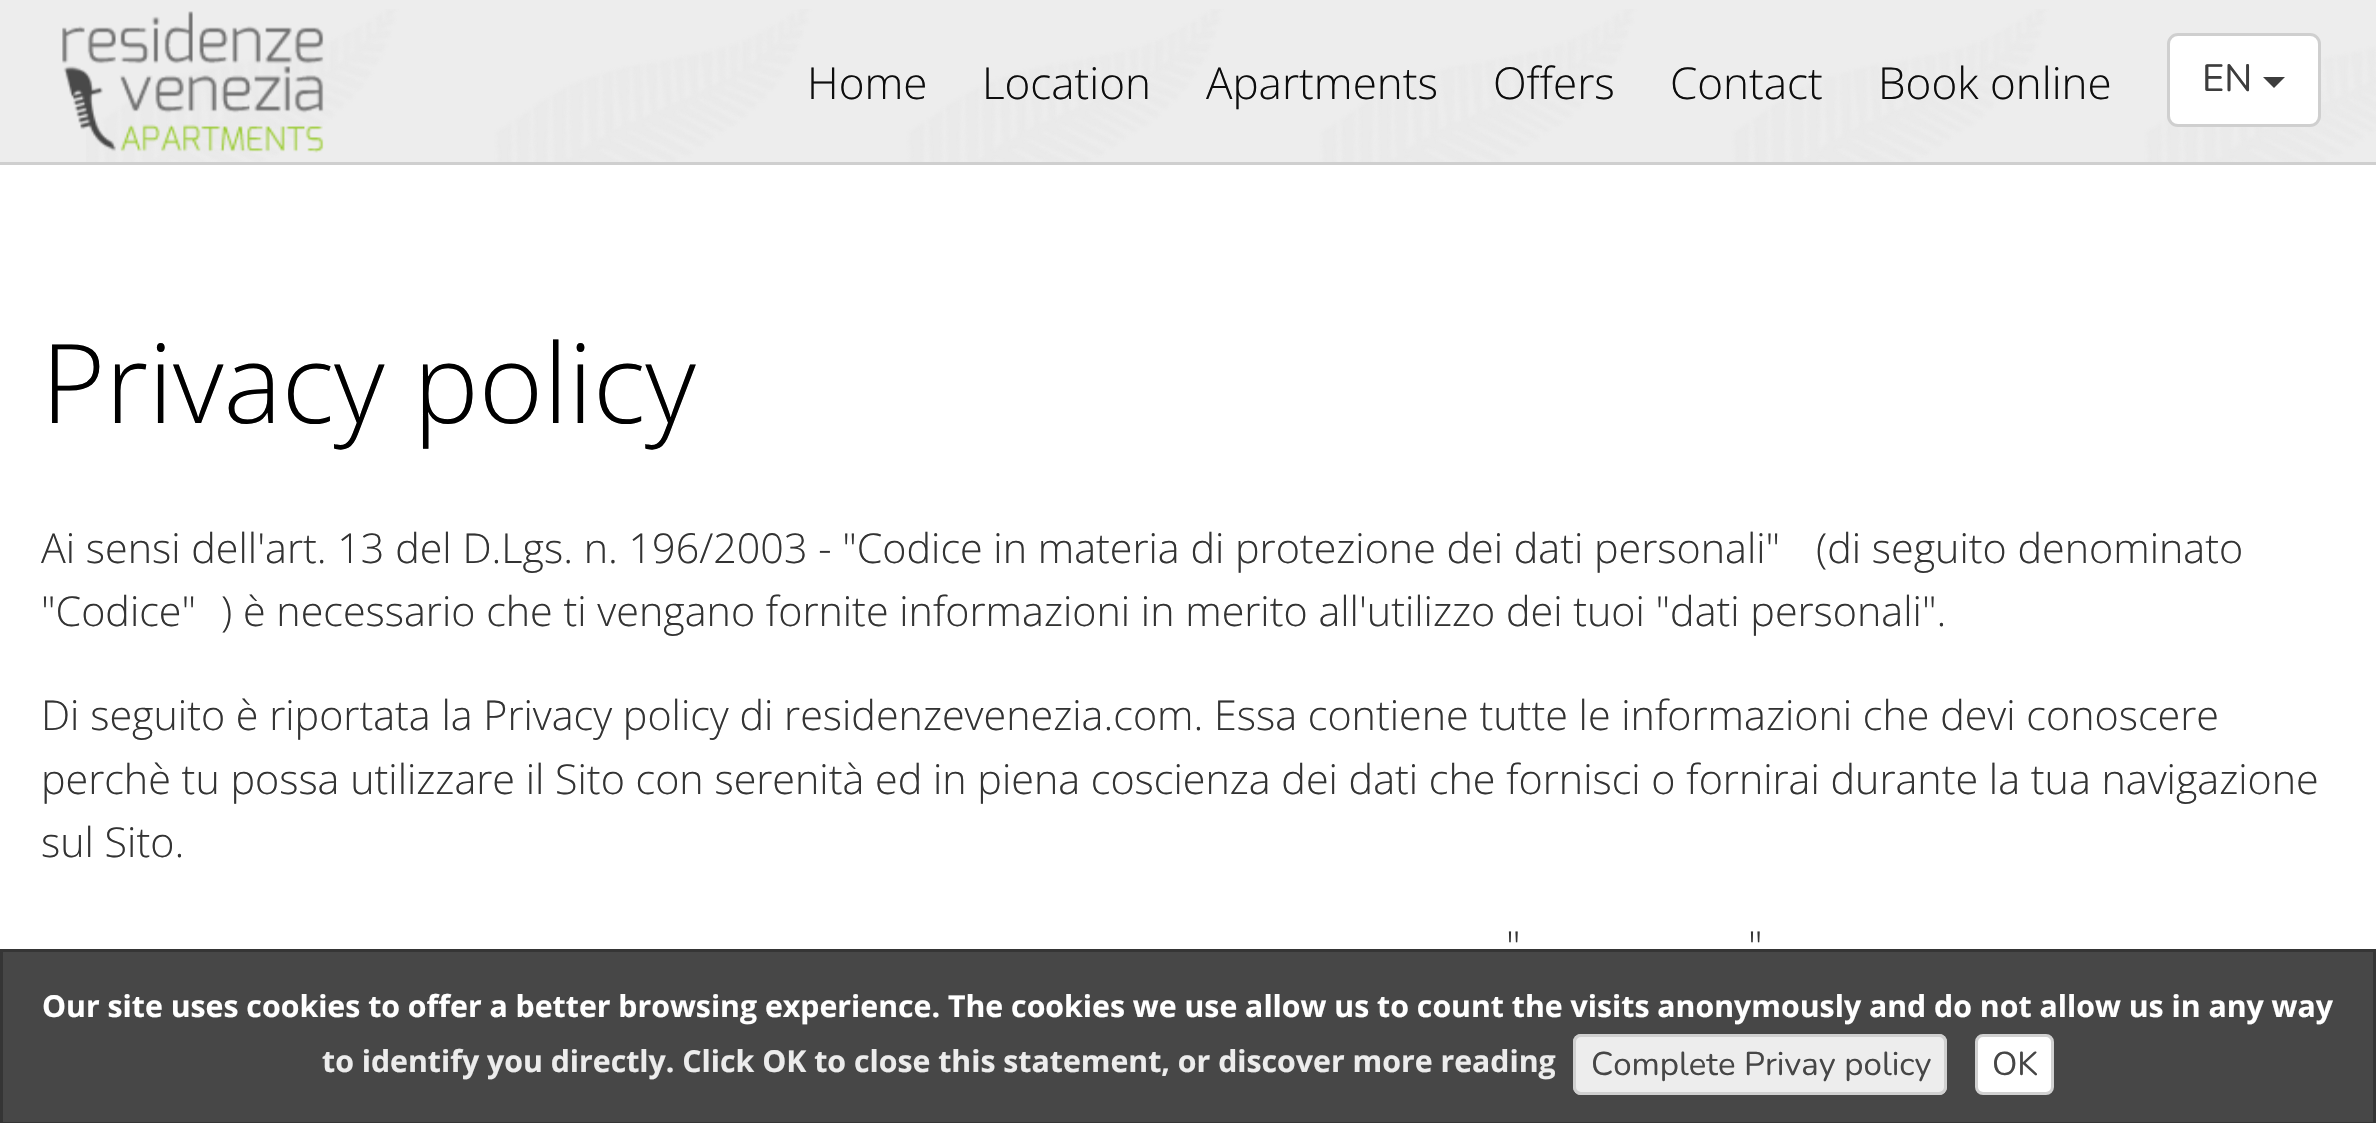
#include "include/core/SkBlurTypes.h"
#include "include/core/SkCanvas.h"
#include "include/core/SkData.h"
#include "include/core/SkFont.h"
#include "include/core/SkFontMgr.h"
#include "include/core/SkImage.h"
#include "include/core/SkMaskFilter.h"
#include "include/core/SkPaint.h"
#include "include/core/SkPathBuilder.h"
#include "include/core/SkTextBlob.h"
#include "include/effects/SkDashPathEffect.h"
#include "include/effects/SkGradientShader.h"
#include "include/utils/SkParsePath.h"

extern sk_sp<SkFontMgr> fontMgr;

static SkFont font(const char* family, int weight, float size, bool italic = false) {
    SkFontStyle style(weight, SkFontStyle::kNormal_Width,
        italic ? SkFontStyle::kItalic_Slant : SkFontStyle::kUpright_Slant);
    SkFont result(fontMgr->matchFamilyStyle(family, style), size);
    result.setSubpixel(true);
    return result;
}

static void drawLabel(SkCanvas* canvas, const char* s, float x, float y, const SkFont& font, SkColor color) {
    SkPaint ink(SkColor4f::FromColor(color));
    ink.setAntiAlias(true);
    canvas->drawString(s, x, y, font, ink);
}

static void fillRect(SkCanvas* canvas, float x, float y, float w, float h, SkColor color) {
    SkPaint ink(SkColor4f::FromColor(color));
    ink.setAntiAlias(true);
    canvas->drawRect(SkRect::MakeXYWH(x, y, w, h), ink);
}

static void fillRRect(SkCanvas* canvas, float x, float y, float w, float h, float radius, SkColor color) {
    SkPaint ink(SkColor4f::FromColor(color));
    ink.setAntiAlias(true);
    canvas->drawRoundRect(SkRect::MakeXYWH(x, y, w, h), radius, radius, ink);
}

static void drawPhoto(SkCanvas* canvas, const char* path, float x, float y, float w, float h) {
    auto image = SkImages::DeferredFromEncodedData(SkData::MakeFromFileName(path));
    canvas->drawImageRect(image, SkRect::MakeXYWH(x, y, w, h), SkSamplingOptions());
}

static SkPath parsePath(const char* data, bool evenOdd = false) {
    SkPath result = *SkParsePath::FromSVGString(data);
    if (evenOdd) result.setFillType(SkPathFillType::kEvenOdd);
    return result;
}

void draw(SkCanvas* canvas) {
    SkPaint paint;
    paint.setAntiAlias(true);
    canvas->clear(0xFFFFFFFF);
    fillRect(canvas, 0, 0, 2376, 162, 0xFFEDEDED);
    drawPhoto(canvas, "assets/img1.png", 86, 9, 2290, 153);
    fillRect(canvas, 0, 162, 2376, 3, 0xFFCFCFCF);
    drawPhoto(canvas, "assets/img2.png", 62, 11, 262, 142);
    SkFont font1 = font("Open Sans", 300, 44);
    drawLabel(canvas, "Home", 807, 99, font1, 0xFF0D0D0D);
    drawLabel(canvas, "Location", 982, 99, font1, 0xFF0D0D0D);
    drawLabel(canvas, "Apartments", 1206, 99, font1, 0xFF0D0D0D);
    drawLabel(canvas, "Offers", 1493, 99, font1, 0xFF0D0D0D);
    drawLabel(canvas, "Contact", 1670, 99, font1, 0xFF0D0D0D);
    drawLabel(canvas, "Book online", 1878, 99, font1, 0xFF0D0D0D);
    paint.setColor(0xFFFFFFFF);
    canvas->drawRoundRect(SkRect::MakeXYWH(2168.5f, 34.5f, 151, 91), 9.5f, 9.5f, paint);
    paint.setStroke(true);
    paint.setStrokeWidth(3);
    paint.setColor(0xFFCFCFCF);
    canvas->drawRoundRect(SkRect::MakeXYWH(2168.5f, 34.5f, 151, 91), 9.5f, 9.5f, paint);
    SkFont font2 = font("Nunito", 400, 38);
    drawLabel(canvas, "EN", 2202, 91, font2, 0xFF3D3D3D);
    paint.setStroke(false);
    paint.setColor(0xFF3D3D3D);
    canvas->drawPath(parsePath("M2263 77H2285L2274 88Z"), paint);
    SkFont font3 = font("Open Sans", 300, 110);
    drawLabel(canvas, "Privacy policy", 41, 423, font3, 0xFF000000);
    SkFont font4 = font("Open Sans", 300, 41.25f);
    drawLabel(canvas, "Ai sensi dell'art. 13 del D.Lgs. n. 196/2003 - \"Codice in materia di protezione dei dati personali\"", 41, 563, font4, 0xFF333333);
    drawLabel(canvas, "(di seguito denominato", 1816, 563, font4, 0xFF333333);
    drawLabel(canvas, "\"Codice\"", 41, 626, font4, 0xFF333333);
    drawLabel(canvas, ") è necessario che ti vengano fornite informazioni in merito all'utilizzo dei tuoi \"dati personali\".", 221, 626, font4, 0xFF333333);
    drawLabel(canvas, "Di seguito è riportata la Privacy policy di residenzevenezia.com. Essa contiene tutte le informazioni che devi conoscere", 41, 730, font4, 0xFF333333);
    drawLabel(canvas, "perchè tu possa utilizzare il Sito con serenità ed in piena coscienza dei dati che fornisci o fornirai durante la tua navigazione", 41, 794, font4, 0xFF333333);
    drawLabel(canvas, "sul Sito.", 41, 857, font4, 0xFF333333);
    drawLabel(canvas, "\"", 1506, 961, font4, 0xFF333333);
    drawLabel(canvas, "\"", 1748, 961, font4, 0xFF333333);
    fillRect(canvas, 0, 949, 2376, 174, 0xE6333333);
    paint.setStroke(true);
    paint.setColor(0xE6333333);
    canvas->drawRect(SkRect::MakeXYWH(1.5f, 950.5f, 2373, 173), paint);
    SkFont font5 = font("Open Sans", 700, 30.25f);
    drawLabel(canvas, "Our site uses cookies to offer a better browsing experience. The cookies we use allow us to count the visits anonymously and do not allow us in any way", 42, 1017, font5, 0xFFFFFFFF);
    drawLabel(canvas, "to identify you directly. Click OK to close this statement, or discover more reading", 322, 1072, font5, 0xFFECECEC);
    fillRRect(canvas, 1573, 1034, 374, 61, 8, 0xE6FFFFFF);
    paint.setColor(0xE6CCCCCC);
    canvas->drawRoundRect(SkRect::MakeXYWH(1574.5f, 1035.5f, 371, 58), 6.5f, 6.5f, paint);
    SkFont font6 = font("Nunito", 400, 33);
    drawLabel(canvas, "Complete Privay policy", 1591, 1075, font6, 0xFF464646);
    paint.setStroke(false);
    paint.setColor(0xFFFFFFFF);
    canvas->drawRoundRect(SkRect::MakeXYWH(1976.5f, 1035.5f, 76, 58), 6.5f, 6.5f, paint);
    paint.setStroke(true);
    paint.setColor(0xFFD1D1D1);
    canvas->drawRoundRect(SkRect::MakeXYWH(1976.5f, 1035.5f, 76, 58), 6.5f, 6.5f, paint);
    drawLabel(canvas, "OK", 1992, 1075, font6, 0xFF464646);
}
